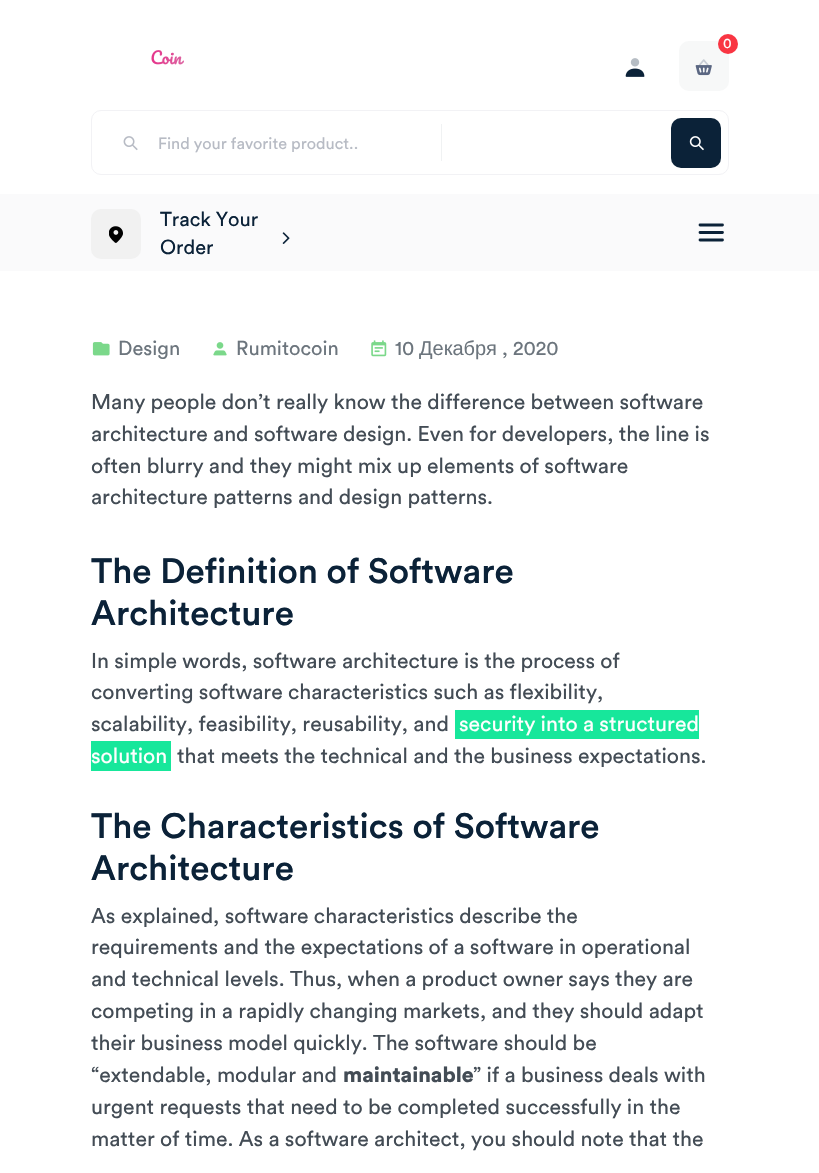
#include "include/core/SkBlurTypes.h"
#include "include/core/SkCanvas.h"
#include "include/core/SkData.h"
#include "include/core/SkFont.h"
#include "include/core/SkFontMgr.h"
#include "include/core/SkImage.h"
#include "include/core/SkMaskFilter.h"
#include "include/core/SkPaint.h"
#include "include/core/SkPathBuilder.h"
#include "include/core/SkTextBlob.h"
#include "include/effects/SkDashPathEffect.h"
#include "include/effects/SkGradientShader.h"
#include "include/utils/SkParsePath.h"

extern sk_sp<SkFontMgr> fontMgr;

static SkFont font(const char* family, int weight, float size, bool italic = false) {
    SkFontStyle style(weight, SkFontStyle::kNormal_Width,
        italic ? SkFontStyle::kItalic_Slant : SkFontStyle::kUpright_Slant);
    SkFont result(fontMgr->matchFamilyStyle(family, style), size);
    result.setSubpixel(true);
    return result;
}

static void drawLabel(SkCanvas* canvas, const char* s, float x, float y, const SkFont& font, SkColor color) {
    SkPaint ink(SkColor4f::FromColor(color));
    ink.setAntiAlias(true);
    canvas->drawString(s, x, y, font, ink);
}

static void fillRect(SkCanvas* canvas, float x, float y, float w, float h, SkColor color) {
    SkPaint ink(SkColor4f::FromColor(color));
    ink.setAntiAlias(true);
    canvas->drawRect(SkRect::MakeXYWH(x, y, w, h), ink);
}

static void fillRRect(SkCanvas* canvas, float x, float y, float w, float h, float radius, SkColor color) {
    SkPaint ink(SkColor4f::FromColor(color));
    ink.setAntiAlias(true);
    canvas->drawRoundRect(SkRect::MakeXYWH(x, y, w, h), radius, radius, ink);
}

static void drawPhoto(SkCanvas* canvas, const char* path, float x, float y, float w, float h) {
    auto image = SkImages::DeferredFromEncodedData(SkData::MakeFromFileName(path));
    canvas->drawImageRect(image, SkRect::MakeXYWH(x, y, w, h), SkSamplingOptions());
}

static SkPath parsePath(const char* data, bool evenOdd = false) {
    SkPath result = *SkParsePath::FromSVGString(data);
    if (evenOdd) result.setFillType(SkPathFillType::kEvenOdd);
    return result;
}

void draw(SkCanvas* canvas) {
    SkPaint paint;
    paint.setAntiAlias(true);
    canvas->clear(0xFFFFFFFF);
    fillRRect(canvas, 679, 41, 50, 50, 10, 0xFFF7F8F8);
    paint.setColor(0xFFF93542);
    canvas->drawCircle(728, 44, 10, paint);
    SkFont font1 = font("Circular", 400, 14);
    drawLabel(canvas, "0", 723, 48, font1, 0xFFFFFFFF);
    drawPhoto(canvas, "assets/img1.png", 695, 59, 17, 17);
    drawPhoto(canvas, "assets/img2.png", 625, 58, 20, 19);
    drawPhoto(canvas, "assets/img3.png", 151, 50, 33, 15);
    paint.setStroke(true);
    paint.setStrokeWidth(1);
    paint.setColor(0xFFF2F2F5);
    canvas->drawRoundRect(SkRect::MakeXYWH(91.5f, 110.5f, 637, 64), 9.5f, 9.5f, paint);
    drawPhoto(canvas, "assets/img4.png", 123, 136, 15, 15);
    SkFont font2 = font("Circular", 400, 16.25f);
    drawLabel(canvas, "Find your favorite product..", 158, 149, font2, 0xFFB7BBC4);
    fillRect(canvas, 441, 124, 1, 37, 0xFFF0F2F3);
    fillRRect(canvas, 671, 118, 50, 50, 10, 0xFF0B2238);
    drawPhoto(canvas, "assets/img5.png", 689, 136, 15, 15);
    fillRect(canvas, 0, 194, 819, 77, 0xFFFAFAFB);
    fillRRect(canvas, 91, 209, 50, 50, 10, 0xFFF1F1F1);
    drawPhoto(canvas, "assets/img6.png", 109, 226, 14, 17);
    SkFont font3 = font("Circular", 400, 20);
    drawLabel(canvas, "Track Your", 160, 226, font3, 0xFF0B2238);
    drawLabel(canvas, "Order", 160, 254, font3, 0xFF0B2238);
    drawPhoto(canvas, "assets/img7.png", 282, 232, 8, 12);
    paint.setStrokeWidth(2.8f);
    paint.setStrokeCap(SkPaint::kRound_Cap);
    paint.setStrokeJoin(SkPaint::kRound_Join);
    paint.setColor(0xFF0B2238);
    canvas->drawPath(parsePath("M700 225H722.5M700 232.5H722.5M722.5 240H700"), paint);
    drawPhoto(canvas, "assets/img8.png", 92, 342, 18, 14);
    drawLabel(canvas, "Design", 118, 355, font3, 0xFF6C757D);
    drawPhoto(canvas, "assets/img9.png", 213, 342, 14, 14);
    drawLabel(canvas, "Rumitocoin", 236, 355, font3, 0xFF6C757D);
    drawPhoto(canvas, "assets/img10.png", 371, 340, 16, 17);
    drawLabel(canvas, "10", 395, 355, font3, 0xFF6C757D);
    SkFont font4 = font("Liberation Sans", 400, 20);
    drawLabel(canvas, "Декабря", 419, 355, font4, 0xFF6C757D);
    drawLabel(canvas, ", 2020", 502, 355, font3, 0xFF6C757D);
    SkFont font5 = font("Circular", 400, 21.25f);
    drawLabel(canvas, "Many people don’t really know the difference between software", 91, 409, font5, 0xFF434C55);
    drawLabel(canvas, "architecture and software design. Even for developers, the line is", 91, 441, font5, 0xFF434C55);
    drawLabel(canvas, "often blurry and they might mix up elements of software", 91, 473, font5, 0xFF434C55);
    drawLabel(canvas, "architecture patterns and design patterns.", 91, 504, font5, 0xFF434C55);
    SkFont font6 = font("Circular", 500, 35);
    drawLabel(canvas, "The Definition of Software", 91, 583, font6, 0xFF0B2238);
    drawLabel(canvas, "Architecture", 91, 625, font6, 0xFF0B2238);
    drawLabel(canvas, "In simple words, software architecture is the process of", 91, 668, font5, 0xFF434C55);
    drawLabel(canvas, "converting software characteristics such as flexibility,", 91, 699, font5, 0xFF434C55);
    drawLabel(canvas, "scalability, feasibility, reusability, and", 91, 731, font5, 0xFF434C55);
    fillRect(canvas, 455, 710, 244, 29, 0xFF17E79B);
    drawLabel(canvas, "security into a structured", 459, 731, font5, 0xFFFFFFFF);
    fillRect(canvas, 91, 741, 80, 30, 0xFF17E79B);
    drawLabel(canvas, "solution", 91, 763, font5, 0xFFFFFFFF);
    drawLabel(canvas, "that meets the technical and the business expectations.", 177, 763, font5, 0xFF434C55);
    drawLabel(canvas, "The Characteristics of Software", 91, 838, font6, 0xFF0B2238);
    drawLabel(canvas, "Architecture", 91, 880, font6, 0xFF0B2238);
    drawLabel(canvas, "As explained, software characteristics describe the", 91, 923, font5, 0xFF434C55);
    drawLabel(canvas, "requirements and the expectations of a software in operational", 91, 954, font5, 0xFF434C55);
    drawLabel(canvas, "and technical levels. Thus, when a product owner says they are", 91, 986, font5, 0xFF434C55);
    drawLabel(canvas, "competing in a rapidly changing markets, and they should adapt", 91, 1018, font5, 0xFF434C55);
    drawLabel(canvas, "their business model quickly. The software should be", 91, 1050, font5, 0xFF434C55);
    drawLabel(canvas, "“extendable, modular and", 91, 1082, font5, 0xFF434C55);
    SkFont font7 = font("Circular", 900, 21.25f);
    drawLabel(canvas, "maintainable", 343, 1082, font7, 0xFF434C55);
    drawLabel(canvas, "” if a business deals with", 473, 1082, font5, 0xFF434C55);
    drawLabel(canvas, "urgent requests that need to be completed successfully in the", 91, 1114, font5, 0xFF434C55);
    drawLabel(canvas, "matter of time. As a software architect, you should note that the", 91, 1146, font5, 0xFF434C55);
}
